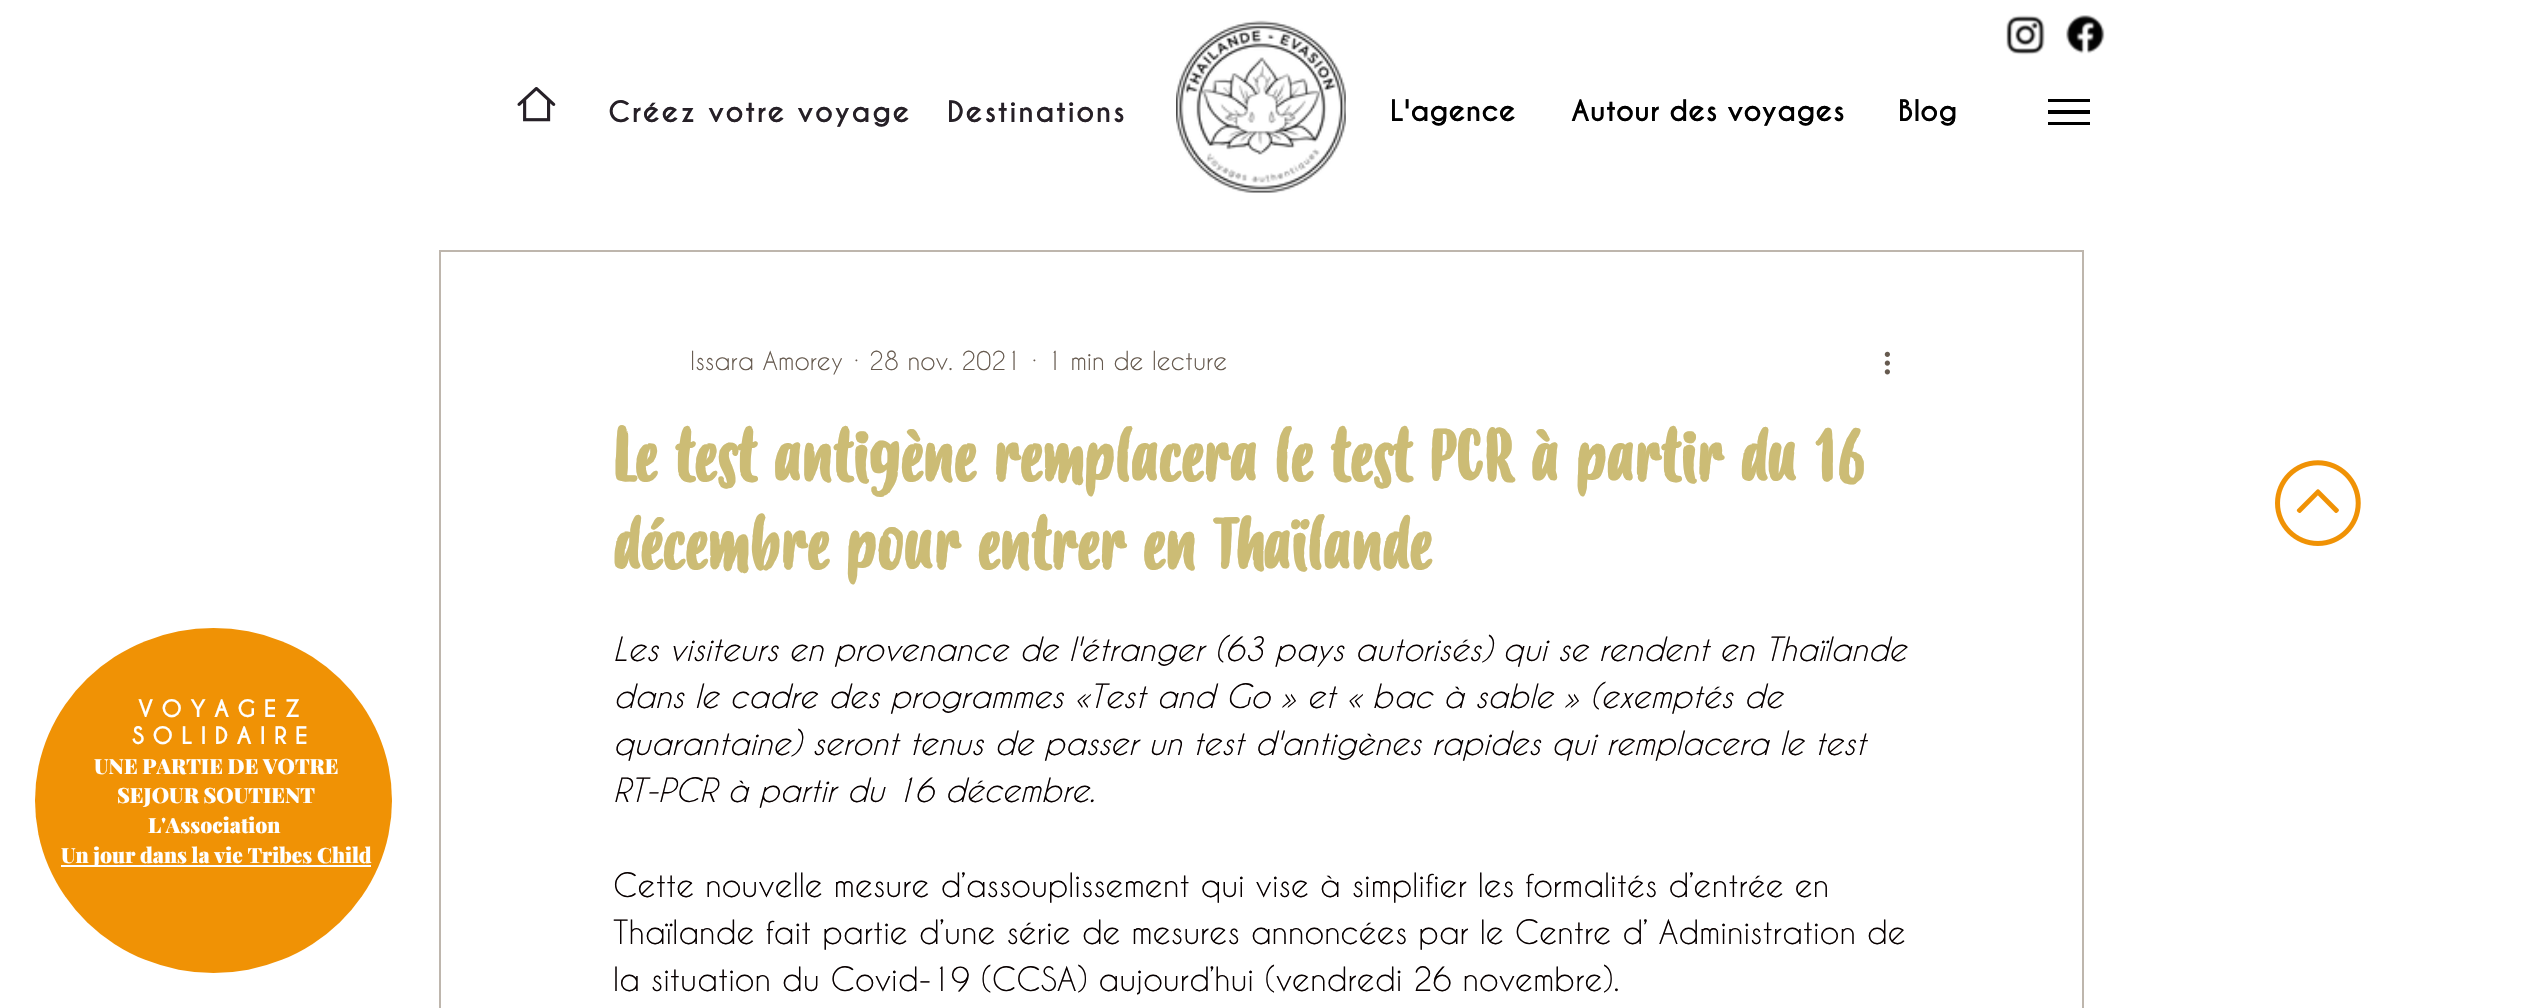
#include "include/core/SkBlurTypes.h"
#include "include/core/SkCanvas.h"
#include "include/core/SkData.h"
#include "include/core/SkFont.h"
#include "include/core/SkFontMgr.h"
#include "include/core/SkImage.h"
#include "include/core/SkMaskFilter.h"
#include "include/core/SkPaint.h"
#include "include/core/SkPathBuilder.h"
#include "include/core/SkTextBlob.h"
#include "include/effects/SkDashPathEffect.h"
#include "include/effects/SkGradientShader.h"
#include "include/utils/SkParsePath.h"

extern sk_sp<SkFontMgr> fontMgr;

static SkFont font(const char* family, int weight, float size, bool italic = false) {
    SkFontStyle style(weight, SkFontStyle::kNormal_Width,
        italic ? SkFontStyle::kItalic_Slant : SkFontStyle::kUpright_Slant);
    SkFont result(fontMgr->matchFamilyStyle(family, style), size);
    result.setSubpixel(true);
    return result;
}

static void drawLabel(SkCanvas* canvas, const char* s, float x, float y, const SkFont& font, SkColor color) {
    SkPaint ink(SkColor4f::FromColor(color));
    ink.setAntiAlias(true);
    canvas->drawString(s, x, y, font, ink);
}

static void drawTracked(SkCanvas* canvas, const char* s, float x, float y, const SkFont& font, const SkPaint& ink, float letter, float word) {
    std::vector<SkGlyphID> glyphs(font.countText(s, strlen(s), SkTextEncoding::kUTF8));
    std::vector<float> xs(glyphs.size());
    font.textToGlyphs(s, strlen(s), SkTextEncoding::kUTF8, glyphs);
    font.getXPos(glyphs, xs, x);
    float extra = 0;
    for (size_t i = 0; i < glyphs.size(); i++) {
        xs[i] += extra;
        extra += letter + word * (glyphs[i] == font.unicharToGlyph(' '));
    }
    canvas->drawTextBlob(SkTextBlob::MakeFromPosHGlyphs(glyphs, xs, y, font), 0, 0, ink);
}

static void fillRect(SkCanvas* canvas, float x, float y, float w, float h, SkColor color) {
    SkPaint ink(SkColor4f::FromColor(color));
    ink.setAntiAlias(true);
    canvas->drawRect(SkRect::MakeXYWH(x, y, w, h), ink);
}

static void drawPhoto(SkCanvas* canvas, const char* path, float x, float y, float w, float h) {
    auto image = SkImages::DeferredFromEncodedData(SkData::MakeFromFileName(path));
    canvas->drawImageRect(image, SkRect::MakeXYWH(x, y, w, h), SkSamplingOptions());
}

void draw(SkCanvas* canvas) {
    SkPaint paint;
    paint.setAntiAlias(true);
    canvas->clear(0xFFFFFFFF);
    drawPhoto(canvas, "assets/img1.png", 517, 87, 39, 35);
    SkFont font1 = font("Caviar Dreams", 700, 28);
    paint.setColor(0xFF262027);
    drawTracked(canvas, "Créez votre voyage", 608, 122, font1, paint, 1.4f, 0);
    drawTracked(canvas, "Destinations", 947, 122, font1, paint, 1.4f, 0);
    drawPhoto(canvas, "assets/img2.png", 1176, 20, 170, 173);
    drawLabel(canvas, "L'agence", 1390, 121, font1, 0xFF000000);
    drawLabel(canvas, "Autour des voyages", 1571, 121, font1, 0xFF000000);
    drawLabel(canvas, "Blog", 1898, 121, font1, 0xFF000000);
    drawPhoto(canvas, "assets/img3.png", 2006, 15, 39, 40);
    drawPhoto(canvas, "assets/img4.png", 2066, 15, 39, 39);
    fillRect(canvas, 2048, 122, 42, 3, 0xFF000000);
    fillRect(canvas, 2048, 99, 42, 3, 0xFF000000);
    fillRect(canvas, 2048, 110, 42, 4, 0xFF000000);
    paint.setStroke(true);
    paint.setStrokeWidth(2);
    paint.setColor(0xFFBEB6AD);
    canvas->drawRect(SkRect::MakeXYWH(440, 251, 1643, 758), paint);
    SkFont font2 = font("Caviar Dreams", 400, 24.5f);
    drawLabel(canvas, "Issara Amorey", 690, 370, font2, 0xFF665A4F);
    drawLabel(canvas, "·", 854, 370, font2, 0xFF665A4F);
    drawLabel(canvas, "28 nov. 2021", 869, 370, font2, 0xFF665A4F);
    drawLabel(canvas, "·", 1032, 370, font2, 0xFF665A4F);
    drawLabel(canvas, "1 min de lecture", 1047, 370, font2, 0xFF665A4F);
    drawPhoto(canvas, "assets/img5.png", 1884, 351, 6, 24);
    SkFont font3 = font("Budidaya", 700, 70);
    drawLabel(canvas, "Le test antigène remplacera le test PCR à partir du 16", 613, 480, font3, 0xFFCCBC75);
    drawLabel(canvas, "décembre pour entrer en Thaïlande", 613, 568, font3, 0xFFCCBC75);
    SkFont font4 = font("Caviar Dreams", 400, 31.5f, true);
    drawLabel(canvas, "Les visiteurs en provenance de l'étranger (63 pays autorisés) qui se rendent en Thaïlande", 613, 661, font4, 0xFF080000);
    drawLabel(canvas, "dans le cadre des programmes «Test and Go » et « bac à sable » (exemptés de", 613, 708, font4, 0xFF080000);
    drawLabel(canvas, "quarantaine) seront tenus de passer un test d'antigènes rapides qui remplacera le test", 613, 755, font4, 0xFF080000);
    drawLabel(canvas, "RT-PCR à partir du 16 décembre.", 613, 802, font4, 0xFF080000);
    SkFont font5 = font("Caviar Dreams", 400, 31.5f);
    drawLabel(canvas, "Cette nouvelle mesure d’assouplissement qui vise à simplifier les formalités d’entrée en", 613, 897, font5, 0xFF080000);
    drawLabel(canvas, "Thaïlande fait partie d’une série de mesures annoncées par le Centre d’ Administration de", 613, 944, font5, 0xFF080000);
    drawLabel(canvas, "la situation du Covid-19 (CCSA) aujourd’hui (vendredi 26 novembre).", 613, 991, font5, 0xFF080000);
    drawPhoto(canvas, "assets/img6.png", 2275, 460, 86, 86);
    paint.setStroke(false);
    paint.setColor(0xFFF09205);
    canvas->drawOval(SkRect::MakeXYWH(35, 628, 357, 345), paint);
    SkFont font6 = font("Caviar Dreams", 700, 22.75f);
    paint.setColor(0xFFFFFFFF);
    drawTracked(canvas, "VOYAGEZ", 138, 717, font6, paint, 8, 0);
    drawTracked(canvas, "SOLIDAIRE", 132, 744, font6, paint, 8, 0);
    SkFont font7 = font("Playfair Display", 900, 21);
    drawLabel(canvas, "UNE PARTIE DE VOTRE", 94, 774, font7, 0xFFFFFFFF);
    drawLabel(canvas, "SEJOUR SOUTIENT", 117, 803, font7, 0xFFFFFFFF);
    drawLabel(canvas, "L'Association", 148, 833, font7, 0xFFFFFFFF);
    fillRect(canvas, 61, 865, 310, 2, 0xFFFFFFFF);
    drawLabel(canvas, "Un jour dans la vie Tribes Child", 61, 863, font7, 0xFFFFFFFF);
}
